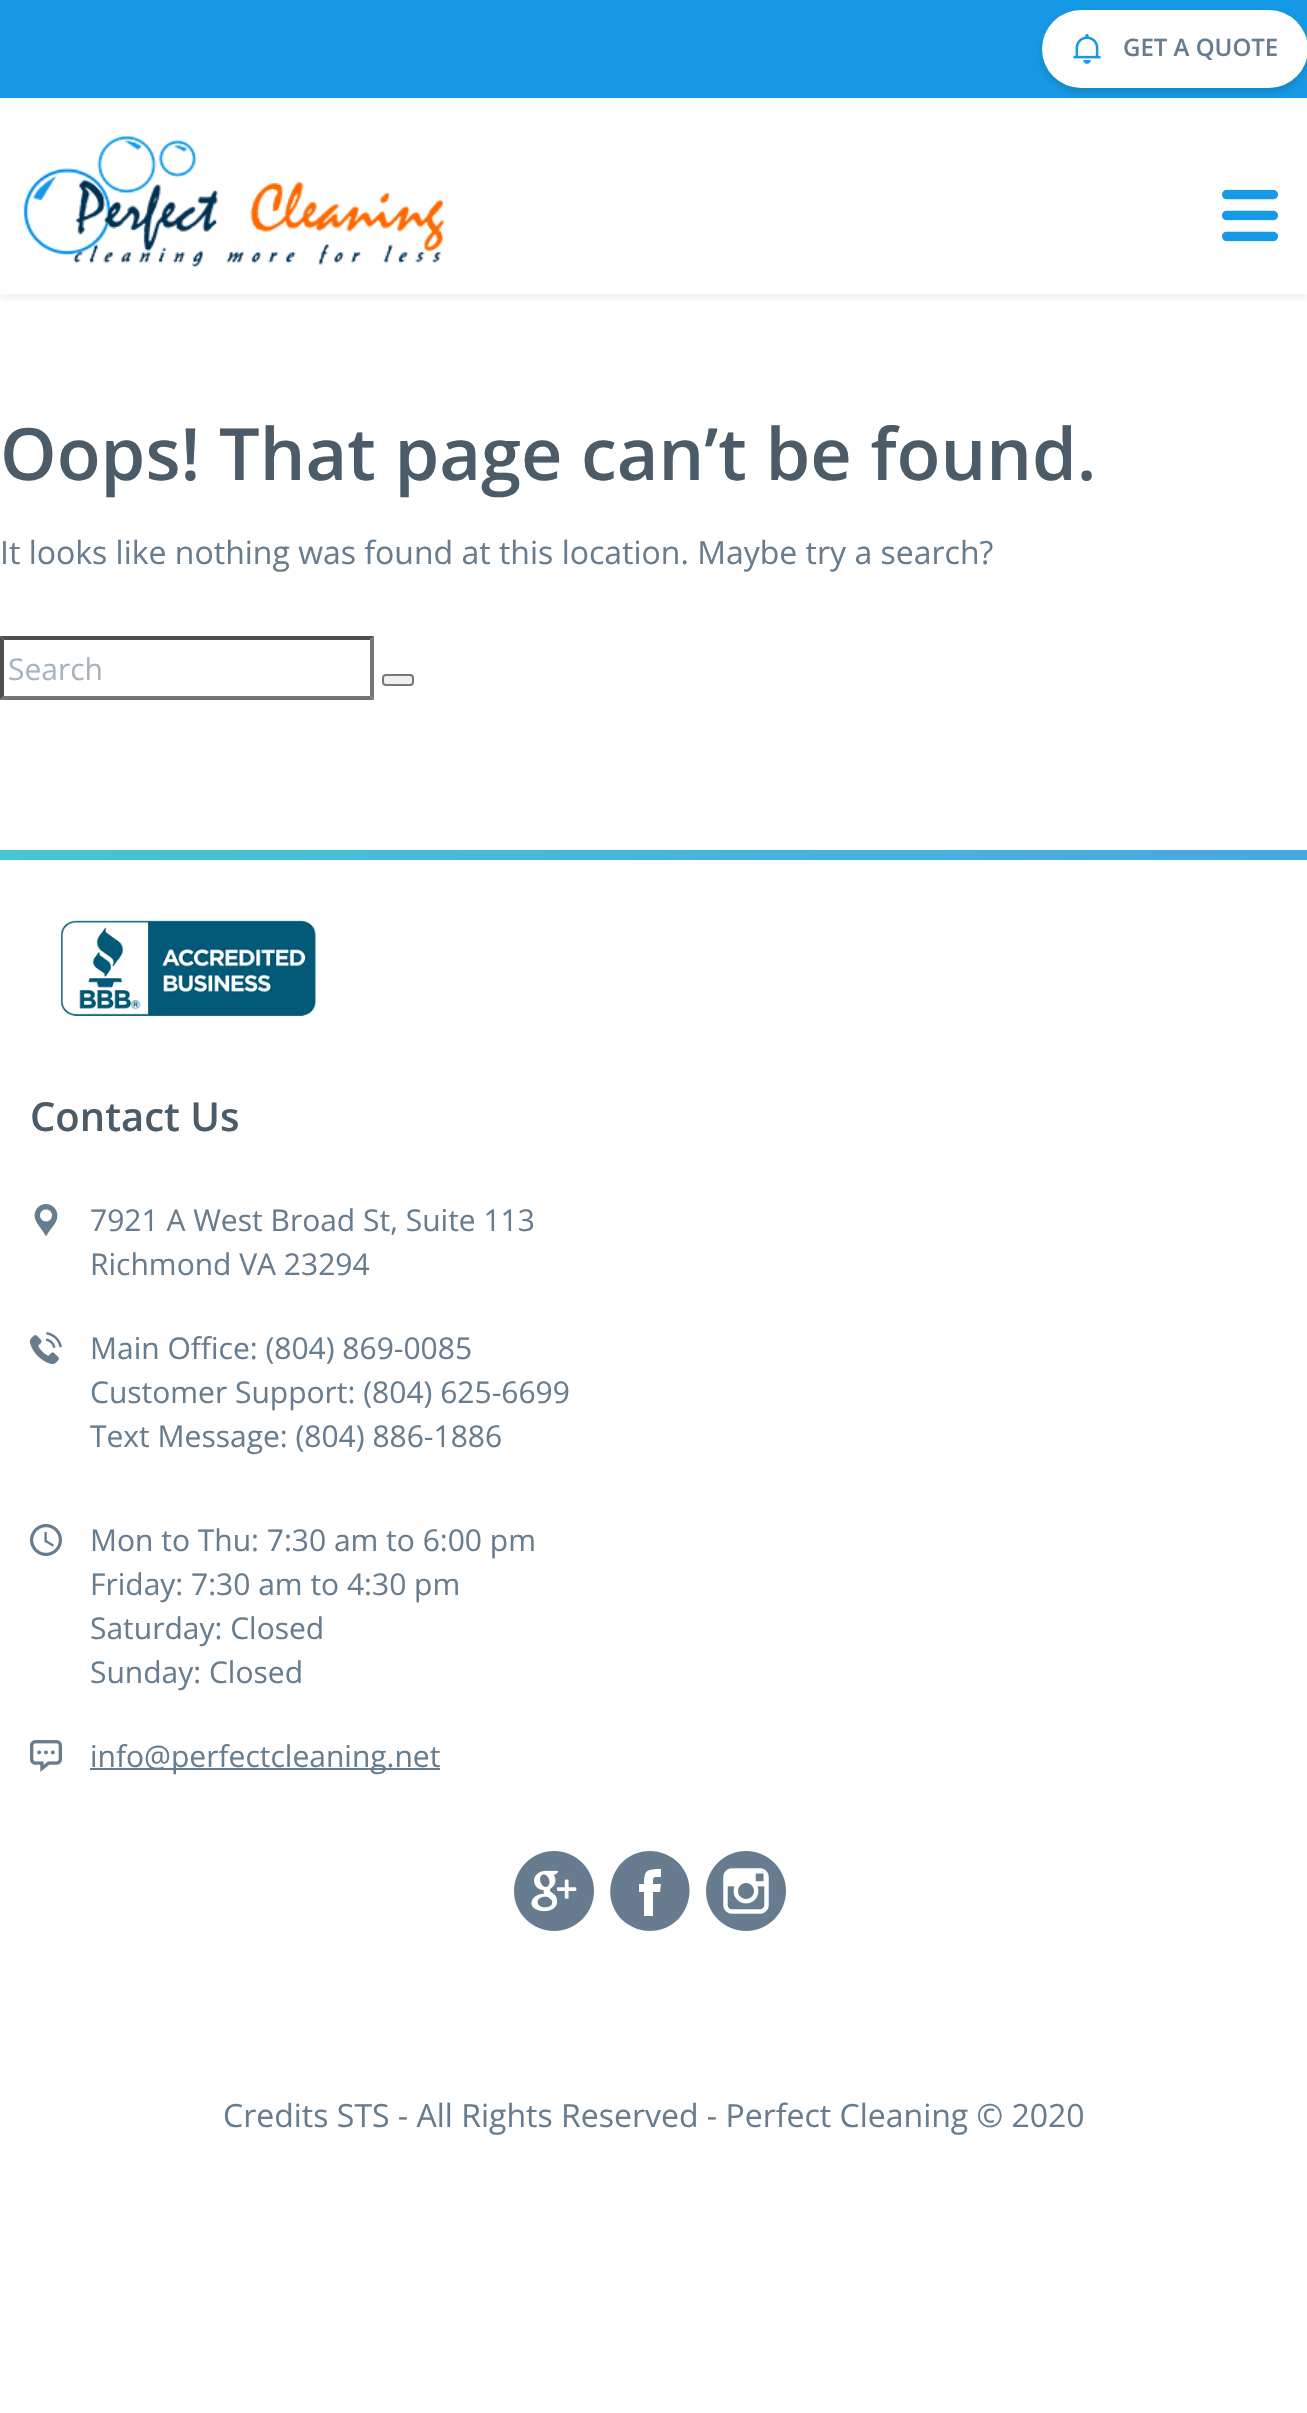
#include "include/core/SkBlurTypes.h"
#include "include/core/SkCanvas.h"
#include "include/core/SkData.h"
#include "include/core/SkFont.h"
#include "include/core/SkFontMgr.h"
#include "include/core/SkImage.h"
#include "include/core/SkMaskFilter.h"
#include "include/core/SkPaint.h"
#include "include/core/SkPathBuilder.h"
#include "include/core/SkTextBlob.h"
#include "include/effects/SkDashPathEffect.h"
#include "include/effects/SkGradientShader.h"
#include "include/utils/SkParsePath.h"

extern sk_sp<SkFontMgr> fontMgr;

static SkFont font(const char* family, int weight, float size, bool italic = false) {
    SkFontStyle style(weight, SkFontStyle::kNormal_Width,
        italic ? SkFontStyle::kItalic_Slant : SkFontStyle::kUpright_Slant);
    SkFont result(fontMgr->matchFamilyStyle(family, style), size);
    result.setSubpixel(true);
    return result;
}

static void drawLabel(SkCanvas* canvas, const char* s, float x, float y, const SkFont& font, SkColor color) {
    SkPaint ink(SkColor4f::FromColor(color));
    ink.setAntiAlias(true);
    canvas->drawString(s, x, y, font, ink);
}

static void fillRect(SkCanvas* canvas, float x, float y, float w, float h, SkColor color) {
    SkPaint ink(SkColor4f::FromColor(color));
    ink.setAntiAlias(true);
    canvas->drawRect(SkRect::MakeXYWH(x, y, w, h), ink);
}

static void fillRRect(SkCanvas* canvas, float x, float y, float w, float h, float radius, SkColor color) {
    SkPaint ink(SkColor4f::FromColor(color));
    ink.setAntiAlias(true);
    canvas->drawRoundRect(SkRect::MakeXYWH(x, y, w, h), radius, radius, ink);
}

static void drawPhoto(SkCanvas* canvas, const char* path, float x, float y, float w, float h) {
    auto image = SkImages::DeferredFromEncodedData(SkData::MakeFromFileName(path));
    canvas->drawImageRect(image, SkRect::MakeXYWH(x, y, w, h), SkSamplingOptions());
}

static SkPath parsePath(const char* data, bool evenOdd = false) {
    SkPath result = *SkParsePath::FromSVGString(data);
    if (evenOdd) result.setFillType(SkPathFillType::kEvenOdd);
    return result;
}

void draw(SkCanvas* canvas) {
    SkPaint paint;
    paint.setAntiAlias(true);
    canvas->clear(0xFFFFFFFF);
    canvas->save();
    canvas->clipRect(SkRect::MakeXYWH(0, 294, 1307, 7));
    paint.setColor(0x0D000000);
    paint.setMaskFilter(SkMaskFilter::MakeBlur(kNormal_SkBlurStyle, 5));
    canvas->drawRect(SkRect::MakeXYWH(0, 6, 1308, 294), paint);
    paint.setMaskFilter(nullptr);
    canvas->restore();
    fillRect(canvas, 0, 0, 1307, 98, 0xFF169AE5);
    paint.setColor(0x26000000);
    paint.setMaskFilter(SkMaskFilter::MakeBlur(kNormal_SkBlurStyle, 5));
    canvas->drawRoundRect(SkRect::MakeXYWH(1042, 14, 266, 78), 39, 39, paint);
    paint.setMaskFilter(nullptr);
    fillRRect(canvas, 1042, 10, 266, 78, 39, 0xFFFFFFFF);
    drawPhoto(canvas, "assets/img1.png", 1073, 33, 28, 31);
    SkFont font1 = font("Open Sans", 600, 24);
    drawLabel(canvas, "GET A QUOTE", 1123, 56, font1, 0xFF677D8F);
    drawPhoto(canvas, "assets/img2.png", 23, 136, 422, 131);
    drawPhoto(canvas, "assets/img3.png", 1222, 189, 56, 53);
    SkFont font2 = font("Open Sans", 600, 72);
    drawLabel(canvas, "Oops! That page can’t be found.", 0, 480, font2, 0xFF4B5B68);
    SkFont font3 = font("Open Sans", 400, 32);
    drawLabel(canvas, "It looks like nothing was found at this location. Maybe try a search?", 0, 564, font3, 0xFF677D8F);
    paint.setColor(0xFF4F4F4F);
    canvas->drawPath(parsePath("M0 636H374L370 640H4Z"), paint);
    paint.setColor(0xFF767676);
    canvas->drawPath(parsePath("M374 636V700L370 696V640Z"), paint);
    canvas->drawPath(parsePath("M374 700H0L4 696H370Z"), paint);
    paint.setColor(0xFF4F4F4F);
    canvas->drawPath(parsePath("M0 700V636L4 640V696Z"), paint);
    SkFont font4 = font("Open Sans", 400, 30);
    drawLabel(canvas, "Search", 8, 680, font4, 0xFFA7B3BD);
    paint.setColor(0xFFEFEFEF);
    canvas->drawRoundRect(SkRect::MakeXYWH(383, 675, 30, 10), 3, 3, paint);
    paint.setStroke(true);
    paint.setStrokeWidth(2);
    paint.setColor(0xFF767676);
    canvas->drawRoundRect(SkRect::MakeXYWH(383, 675, 30, 10), 3, 3, paint);
    paint.setStroke(false);
    {
        const SkColor colors[] = {0xFF46C6CF, 0xFF47A8E3};
        const float stops[] = {0, 1};
        const SkPoint ends[] = {{0, 855}, {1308, 855}};
        paint.setShader(SkGradientShader::MakeLinear(ends, colors, stops, 2, SkTileMode::kClamp));
        paint.setAlpha(255);
    }
    canvas->drawRect(SkRect::MakeXYWH(0, 850, 1307, 10), paint);
    drawPhoto(canvas, "assets/img4.png", 60, 920, 256, 96);
    SkFont font5 = font("Open Sans", 600, 40);
    drawLabel(canvas, "Contact Us", 30, 1131, font5, 0xFF4B5B68);
    drawPhoto(canvas, "assets/img5.png", 34, 1204, 24, 32);
    drawLabel(canvas, "7921 A West Broad St, Suite 113", 90, 1231, font4, 0xFF677D8F);
    drawLabel(canvas, "Richmond VA 23294", 90, 1275, font4, 0xFF677D8F);
    drawPhoto(canvas, "assets/img6.png", 30, 1332, 32, 32);
    drawLabel(canvas, "Main Office: (804) 869-0085", 90, 1359, font4, 0xFF677D8F);
    drawLabel(canvas, "Customer Support: (804) 625-6699", 90, 1403, font4, 0xFF677D8F);
    drawLabel(canvas, "Text Message: (804) 886-1886", 90, 1447, font4, 0xFF677D8F);
    drawPhoto(canvas, "assets/img7.png", 30, 1524, 32, 32);
    drawLabel(canvas, "Mon to Thu: 7:30 am to 6:00 pm", 90, 1551, font4, 0xFF677D8F);
    drawLabel(canvas, "Friday: 7:30 am to 4:30 pm", 90, 1595, font4, 0xFF677D8F);
    drawLabel(canvas, "Saturday: Closed", 90, 1639, font4, 0xFF677D8F);
    drawLabel(canvas, "Sunday: Closed", 90, 1683, font4, 0xFF677D8F);
    drawPhoto(canvas, "assets/img8.png", 30, 1740, 32, 32);
    fillRect(canvas, 90, 1768, 350, 2, 0xFF677D8F);
    drawLabel(canvas, "info@perfectcleaning.net", 90, 1767, font4, 0xFF677D8F);
    drawPhoto(canvas, "assets/img9.png", 514, 1851, 80, 80);
    paint.setShader(nullptr);
    paint.setColor(0xFF677D8F);
    canvas->drawPath(parsePath("M650 1851C612 1851 596 1900 626 1923C633 1928 641 1931 650 1931C688 1931 704 1882 674 1859C667 1854 659 1851 650 1851ZM660 1892H653V1916H644V1892H639V1884H644C644 1870 647 1869 661 1869V1877C653 1877 653 1876 653 1884H661Z"), paint);
    drawPhoto(canvas, "assets/img10.png", 706, 1851, 80, 80);
    drawLabel(canvas, "Credits STS - All Rights Reserved - Perfect Cleaning © 2020", 223, 2127, font3, 0xFF677D8F);
}
